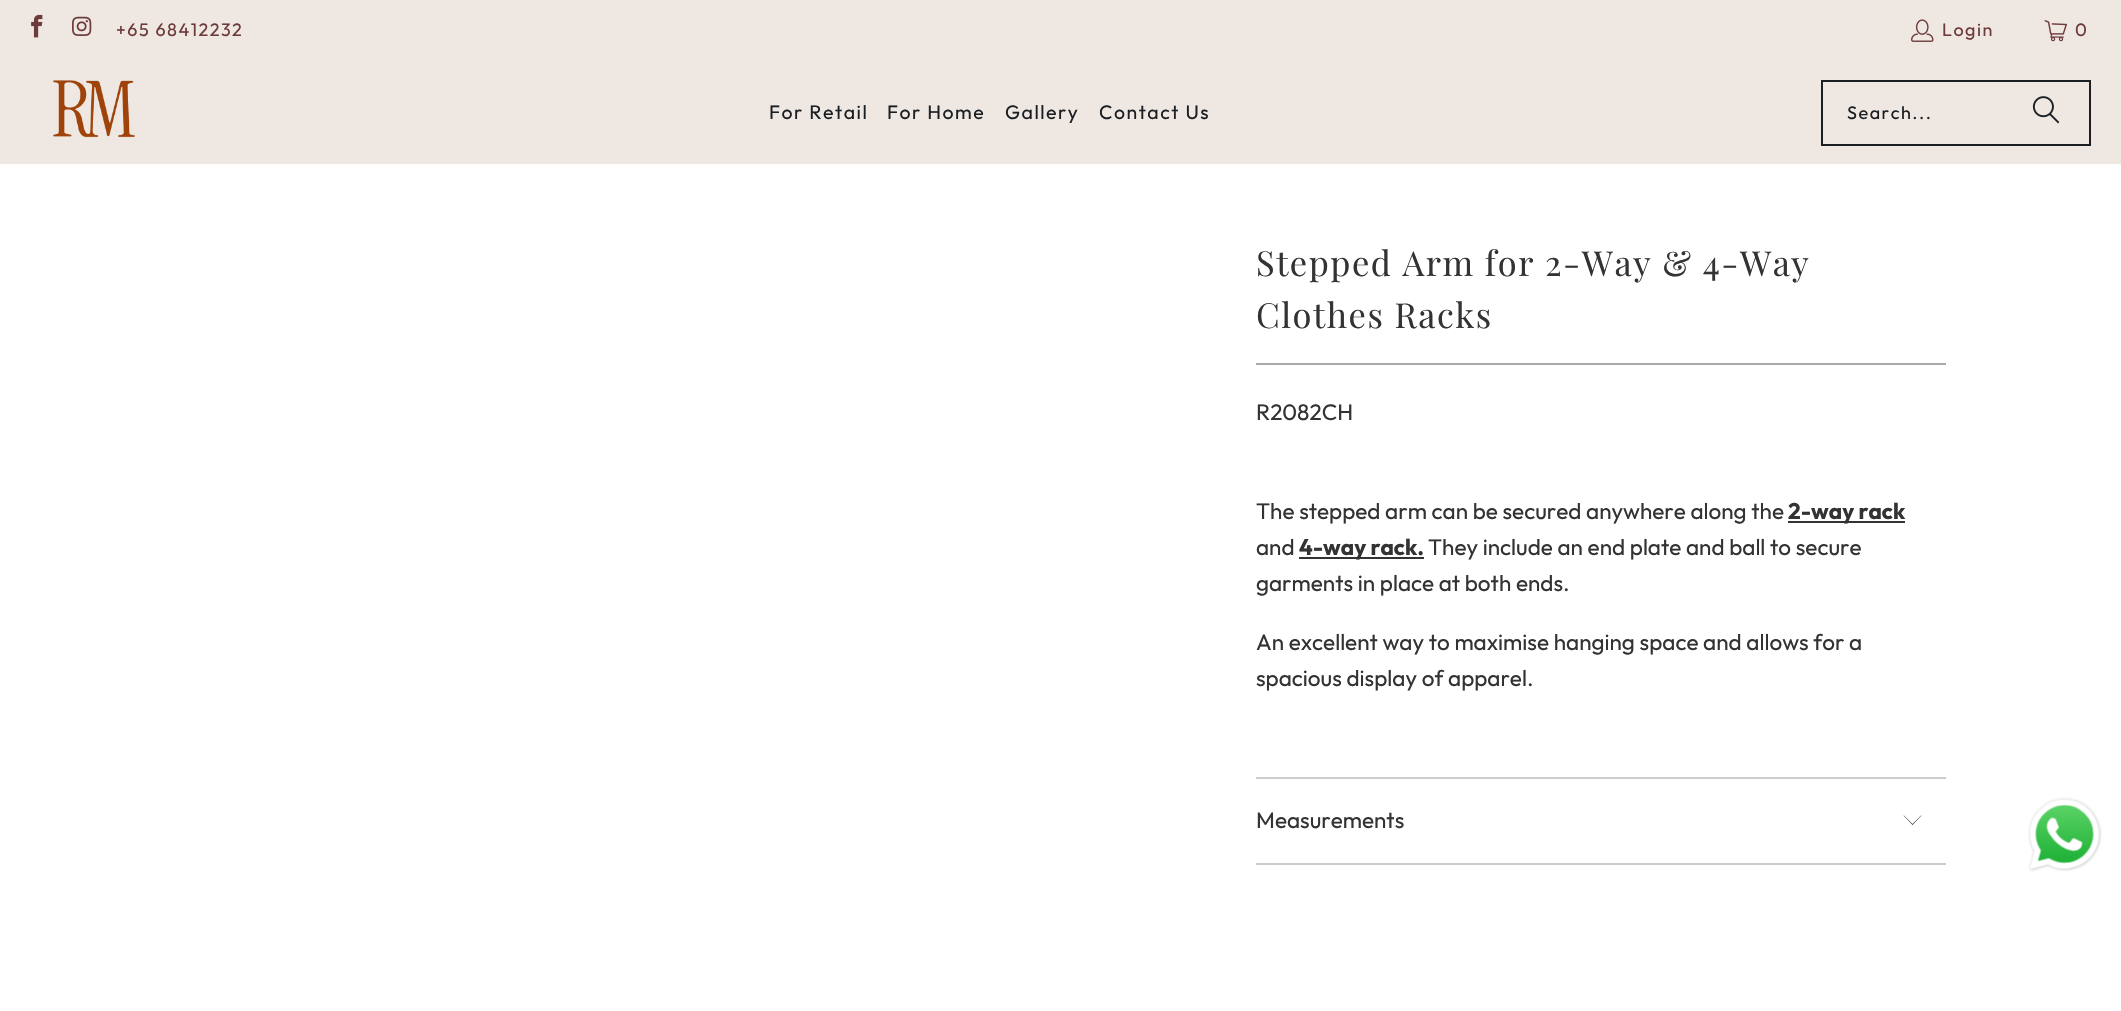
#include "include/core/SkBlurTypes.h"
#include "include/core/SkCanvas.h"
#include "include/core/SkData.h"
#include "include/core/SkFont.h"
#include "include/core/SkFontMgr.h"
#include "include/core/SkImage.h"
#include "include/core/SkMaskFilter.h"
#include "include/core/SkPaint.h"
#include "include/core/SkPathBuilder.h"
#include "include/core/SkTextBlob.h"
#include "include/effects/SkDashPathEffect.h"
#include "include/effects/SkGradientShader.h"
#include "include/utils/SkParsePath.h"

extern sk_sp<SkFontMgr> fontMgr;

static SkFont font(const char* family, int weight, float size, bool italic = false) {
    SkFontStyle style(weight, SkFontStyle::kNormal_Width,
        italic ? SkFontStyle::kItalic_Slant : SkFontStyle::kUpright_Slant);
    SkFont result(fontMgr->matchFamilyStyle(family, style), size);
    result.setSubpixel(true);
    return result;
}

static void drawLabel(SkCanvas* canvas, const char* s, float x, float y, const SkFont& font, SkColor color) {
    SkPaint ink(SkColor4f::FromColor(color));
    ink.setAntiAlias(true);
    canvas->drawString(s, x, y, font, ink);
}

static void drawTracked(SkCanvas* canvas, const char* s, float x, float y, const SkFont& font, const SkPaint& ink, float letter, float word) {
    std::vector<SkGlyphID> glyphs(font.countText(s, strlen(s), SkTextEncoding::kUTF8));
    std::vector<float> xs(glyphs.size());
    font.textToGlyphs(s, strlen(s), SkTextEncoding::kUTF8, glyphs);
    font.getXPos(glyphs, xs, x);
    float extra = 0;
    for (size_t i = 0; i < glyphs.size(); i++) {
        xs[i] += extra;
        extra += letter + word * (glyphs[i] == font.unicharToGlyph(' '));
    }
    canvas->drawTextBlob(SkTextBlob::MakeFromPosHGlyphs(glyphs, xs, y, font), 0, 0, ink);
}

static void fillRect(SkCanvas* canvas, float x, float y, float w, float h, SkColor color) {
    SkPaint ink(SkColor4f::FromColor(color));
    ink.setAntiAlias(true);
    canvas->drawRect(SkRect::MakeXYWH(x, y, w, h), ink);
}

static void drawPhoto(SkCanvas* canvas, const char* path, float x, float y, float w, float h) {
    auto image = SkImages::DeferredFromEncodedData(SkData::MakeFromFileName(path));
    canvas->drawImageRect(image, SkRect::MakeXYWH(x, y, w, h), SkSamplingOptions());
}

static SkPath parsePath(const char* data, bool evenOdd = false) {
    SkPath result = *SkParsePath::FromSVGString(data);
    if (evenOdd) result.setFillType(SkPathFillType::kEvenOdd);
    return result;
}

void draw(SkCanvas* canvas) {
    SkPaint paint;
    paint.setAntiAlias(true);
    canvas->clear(0xFFFFFFFF);
    fillRect(canvas, 0, 0, 2121, 164, 0xFFEFE8E2);
    drawPhoto(canvas, "assets/img1.png", 31, 14, 12, 24);
    drawPhoto(canvas, "assets/img2.png", 72, 16, 20, 20);
    SkFont font1 = font("Outfit", 400, 18);
    paint.setColor(0xFF6E3B3C);
    drawTracked(canvas, "+65 68412232", 116, 36, font1, paint, 1.5f, 0);
    drawPhoto(canvas, "assets/img3.png", 1911, 19, 23, 23);
    drawTracked(canvas, "Login", 1942, 36, font1, paint, 1.5f, 0);
    drawPhoto(canvas, "assets/img4.png", 2044, 20, 23, 22);
    drawTracked(canvas, "0", 2075, 36, font1, paint, 1.5f, 0);
    drawPhoto(canvas, "assets/img5.png", 53, 80, 82, 58);
    SkFont font2 = font("Outfit", 400, 19.5f);
    paint.setColor(0xFF1B1F23);
    drawTracked(canvas, "For Retail", 769, 119, font2, paint, 1.5f, 0);
    drawTracked(canvas, "For Home", 887, 119, font2, paint, 1.5f, 0);
    drawTracked(canvas, "Gallery", 1005, 119, font2, paint, 1.5f, 0);
    drawTracked(canvas, "Contact Us", 1099, 119, font2, paint, 1.5f, 0);
    paint.setStroke(true);
    paint.setStrokeWidth(2);
    canvas->drawRect(SkRect::MakeXYWH(1822, 81, 268, 64), paint);
    paint.setStroke(false);
    drawTracked(canvas, "Search...", 1847, 119, font1, paint, 1.5f, 0);
    drawPhoto(canvas, "assets/img6.png", 2032, 96, 28, 28);
    SkFont font3 = font("Playfair Display", 400, 34.5f);
    paint.setColor(0xFF333333);
    drawTracked(canvas, "Stepped Arm for 2-Way & 4-Way", 1256, 276, font3, paint, 1.5f, 0);
    drawTracked(canvas, "Clothes Racks", 1256, 328, font3, paint, 1.5f, 0);
    fillRect(canvas, 1256, 363, 690, 2, 0xFFAAAAAA);
    SkFont font4 = font("Outfit", 400, 22.5f);
    drawLabel(canvas, "R2082CH", 1256, 420, font4, 0xFF333333);
    drawLabel(canvas, "The stepped arm can be secured anywhere along the", 1256, 519, font4, 0xFF333333);
    fillRect(canvas, 1788, 521, 117, 2, 0xFF333333);
    SkFont font5 = font("Outfit", 700, 22.5f);
    drawLabel(canvas, "2-way rack", 1788, 519, font5, 0xFF333333);
    drawLabel(canvas, "and", 1256, 555, font4, 0xFF333333);
    fillRect(canvas, 1299, 557, 125, 2, 0xFF333333);
    drawLabel(canvas, "4-way rack.", 1299, 555, font5, 0xFF333333);
    drawLabel(canvas, "They include an end plate and ball to secure", 1428, 555, font4, 0xFF333333);
    drawLabel(canvas, "garments in place at both ends.", 1256, 591, font4, 0xFF333333);
    drawLabel(canvas, "An excellent way to maximise hanging space and allows for a", 1256, 650, font4, 0xFF333333);
    drawLabel(canvas, "spacious display of apparel.", 1256, 686, font4, 0xFF333333);
    fillRect(canvas, 1256, 777, 690, 2, 0xFFCCCCCC);
    fillRect(canvas, 1256, 863, 690, 2, 0xFFCCCCCC);
    drawLabel(canvas, "Measurements", 1256, 828, font4, 0xFF333333);
    canvas->drawPath(parsePath("M1912.5 825L1903.5 815.5H1904L1912.5 824L1921 815.5H1921.5Z"), paint);
    drawPhoto(canvas, "assets/img7.png", 2028, 797, 74, 75);
}
